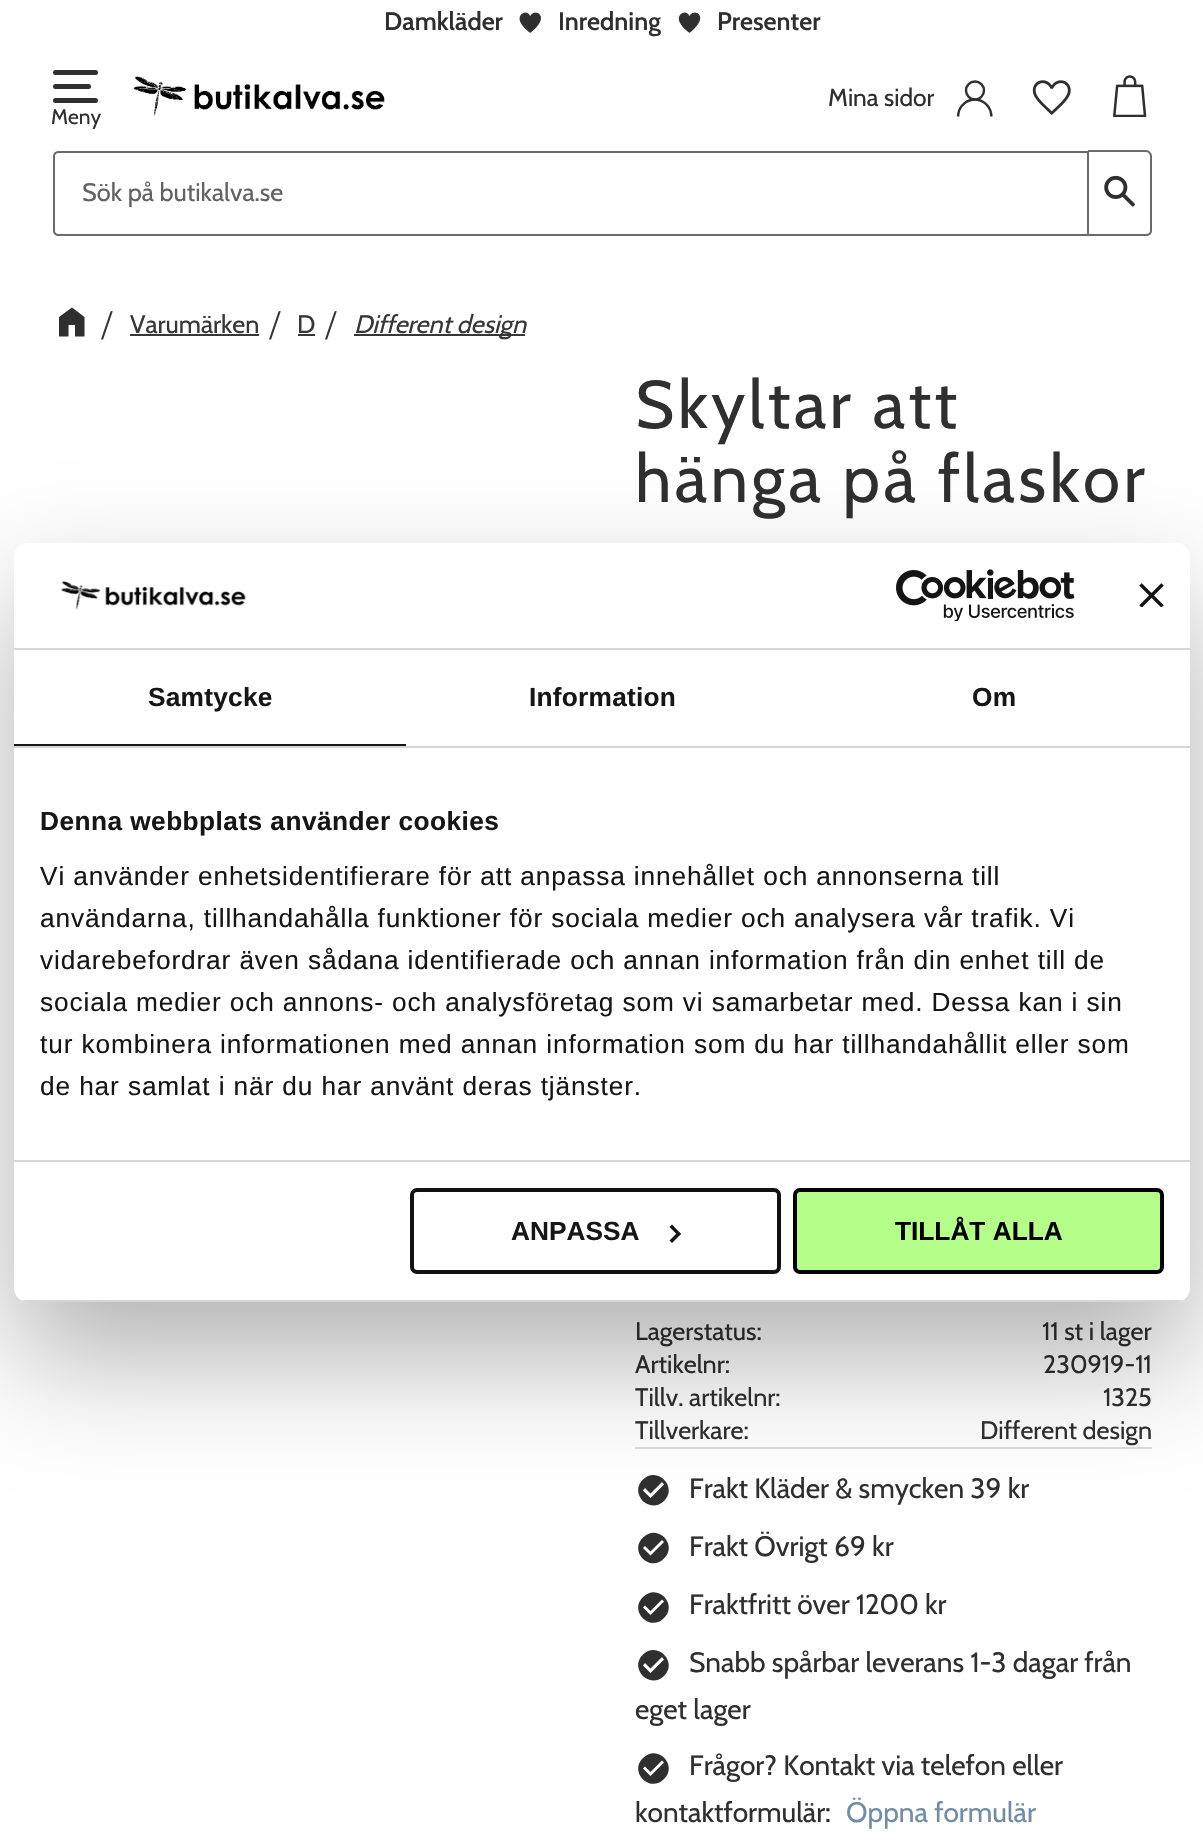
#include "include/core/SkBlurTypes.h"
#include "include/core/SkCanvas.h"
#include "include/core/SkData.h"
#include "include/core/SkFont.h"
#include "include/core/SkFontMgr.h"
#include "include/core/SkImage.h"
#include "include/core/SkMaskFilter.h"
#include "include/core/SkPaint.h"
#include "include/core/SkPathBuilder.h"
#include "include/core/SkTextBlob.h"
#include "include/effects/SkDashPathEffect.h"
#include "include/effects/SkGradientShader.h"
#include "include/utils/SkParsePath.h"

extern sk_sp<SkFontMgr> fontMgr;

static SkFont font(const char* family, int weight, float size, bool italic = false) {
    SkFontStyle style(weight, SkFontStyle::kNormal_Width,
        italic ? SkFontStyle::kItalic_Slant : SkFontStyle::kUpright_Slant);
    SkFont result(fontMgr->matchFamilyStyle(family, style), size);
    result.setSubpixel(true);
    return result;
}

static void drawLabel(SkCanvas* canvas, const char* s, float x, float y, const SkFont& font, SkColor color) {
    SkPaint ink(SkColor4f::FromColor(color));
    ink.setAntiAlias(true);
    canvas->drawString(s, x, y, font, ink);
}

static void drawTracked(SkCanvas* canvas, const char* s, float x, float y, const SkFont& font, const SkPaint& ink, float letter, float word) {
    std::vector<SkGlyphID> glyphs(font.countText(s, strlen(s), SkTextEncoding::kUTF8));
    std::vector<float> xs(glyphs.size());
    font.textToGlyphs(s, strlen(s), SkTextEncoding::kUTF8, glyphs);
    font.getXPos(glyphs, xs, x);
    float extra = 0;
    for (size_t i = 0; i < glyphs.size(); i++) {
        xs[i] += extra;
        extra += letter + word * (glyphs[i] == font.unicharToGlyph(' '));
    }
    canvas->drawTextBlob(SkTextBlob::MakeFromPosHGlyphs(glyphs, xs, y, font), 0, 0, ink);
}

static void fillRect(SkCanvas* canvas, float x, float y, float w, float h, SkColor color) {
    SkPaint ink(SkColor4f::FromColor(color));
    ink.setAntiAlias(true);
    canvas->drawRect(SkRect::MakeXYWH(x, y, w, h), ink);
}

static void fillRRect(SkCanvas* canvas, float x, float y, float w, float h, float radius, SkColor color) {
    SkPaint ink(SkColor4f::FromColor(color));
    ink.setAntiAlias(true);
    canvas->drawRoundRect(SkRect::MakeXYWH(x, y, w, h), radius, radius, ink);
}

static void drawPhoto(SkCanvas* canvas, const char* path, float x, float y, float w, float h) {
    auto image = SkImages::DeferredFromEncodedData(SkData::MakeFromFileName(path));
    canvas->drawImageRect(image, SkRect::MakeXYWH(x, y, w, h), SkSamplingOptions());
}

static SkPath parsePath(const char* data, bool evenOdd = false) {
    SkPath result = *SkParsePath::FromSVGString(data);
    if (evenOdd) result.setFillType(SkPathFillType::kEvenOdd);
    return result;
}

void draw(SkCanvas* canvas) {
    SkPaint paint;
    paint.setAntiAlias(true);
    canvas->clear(0xFFFFFFFF);
    fillRRect(canvas, 53, 84, 38, 5, 2.5f, 0xFF2F2F2F);
    fillRRect(canvas, 53, 70, 45, 5, 2.5f, 0xFF2F2F2F);
    fillRRect(canvas, 53, 98, 45, 5, 2.5f, 0xFF2F2F2F);
    SkFont font1 = font("Cabin", 400, 21);
    drawLabel(canvas, "Meny", 51, 124, font1, 0xFF2F2F2F);
    SkFont font2 = font("Cabin", 600, 25.25f);
    drawLabel(canvas, "Damkläder", 384, 30, font2, 0xFF2F2F2F);
    drawPhoto(canvas, "assets/img1.png", 519, 12, 22, 21);
    drawLabel(canvas, "Inredning", 558, 30, font2, 0xFF2F2F2F);
    drawPhoto(canvas, "assets/img2.png", 678, 12, 23, 21);
    drawLabel(canvas, "Presenter", 717, 30, font2, 0xFF2F2F2F);
    drawPhoto(canvas, "assets/img3.png", 133, 76, 252, 41);
    SkFont font3 = font("Cabin", 400, 24.5f);
    drawLabel(canvas, "Mina sidor", 828, 106, font3, 0xFF2F2F2F);
    paint.setStroke(true);
    paint.setStrokeWidth(2.4f);
    paint.setColor(0xFF2F2F2F);
    canvas->drawCircle(975, 90.5f, 9, paint);
    canvas->drawPath(parsePath("M958 116.5L958.5 113C960 105.5 967 99.5 975 99.5C982.5 99.5 989.5 105.5 991 113L991.5 116.5"), paint);
    drawPhoto(canvas, "assets/img4.png", 1032, 80, 39, 35);
    drawPhoto(canvas, "assets/img5.png", 1113, 75, 34, 42);
    paint.setStrokeWidth(2);
    paint.setColor(0xFF6A6A6A);
    canvas->drawPath(parsePath("M58 152H1088V235H58C56 235 54 233 54 231V156C54 154 56 152 58 152Z"), paint);
    SkFont font4 = font("Cabin", 400, 25.25f);
    drawLabel(canvas, "Sök på butikalva.se", 82, 201, font4, 0xFF626262);
    paint.setStroke(false);
    canvas->drawPath(parsePath("M1088 150H1146C1149 150 1152 153 1152 156V231C1152 234 1149 236 1146 236H1088ZM1088 152H1146C1148 152 1150 154 1150 156V231C1150 233 1148 234 1146 234H1088Z", true), paint);
    drawPhoto(canvas, "assets/img6.png", 1104, 175, 31, 32);
    paint.setColor(0xFF2F2F2F);
    canvas->drawPath(parsePath("M59 336.5V317L72 307.5L84.5 317V336.5H75V325H68.5V336.5Z"), paint);
    SkFont font5 = font("Liberation Serif", 400, 42);
    drawLabel(canvas, "/", 101, 339, font5, 0xFF373737);
    drawLabel(canvas, "Varumärken", 130, 333, font4, 0xFF373737);
    fillRect(canvas, 130, 334, 129, 2, 0xFF373737);
    drawLabel(canvas, "/", 269, 339, font5, 0xFF373737);
    drawLabel(canvas, "D", 297, 333, font4, 0xFF373737);
    fillRect(canvas, 298, 334, 17, 2, 0xFF373737);
    drawLabel(canvas, "/", 325, 339, font5, 0xFF373737);
    fillRect(canvas, 354, 334, 171, 2, 0xFF373737);
    SkFont font6 = font("Cabin", 400, 25.25f, true);
    drawLabel(canvas, "Different design", 354, 333, font6, 0xFF373737);
    SkFont font7 = font("Cabin", 400, 67.25f);
    drawTracked(canvas, "Skyltar att", 635, 428, font7, paint, 3.4f, 0);
    drawTracked(canvas, "hänga på flaskor", 635, 502, font7, paint, 3.4f, 0);
    drawLabel(canvas, "Lagerstatus:", 635, 1340, font4, 0xFF2F2F2F);
    drawLabel(canvas, "11 st i lager", 1042, 1340, font4, 0xFF2F2F2F);
    drawLabel(canvas, "Artikelnr:", 635, 1373, font4, 0xFF2F2F2F);
    drawLabel(canvas, "230919-11", 1043, 1373, font4, 0xFF2F2F2F);
    drawLabel(canvas, "Tillv. artikelnr:", 635, 1406, font4, 0xFF2F2F2F);
    drawLabel(canvas, "1325", 1103, 1406, font4, 0xFF2F2F2F);
    drawLabel(canvas, "Tillverkare:", 635, 1439, font4, 0xFF2F2F2F);
    drawLabel(canvas, "Different design", 980, 1439, font4, 0xFF2F2F2F);
    fillRect(canvas, 635, 1447, 517, 2, 0xFFDBDBDB);
    canvas->drawPath(parsePath("M650.5 1498L664 1484.5L662 1482L650.5 1493.5L645 1488L643 1490.5ZM643 1479.5C657 1465.5 678.5 1487 664 1501C650 1515 628.5 1493.5 643 1479.5Z"), paint);
    SkFont font8 = font("Cabin", 400, 28);
    drawLabel(canvas, "Frakt Kläder & smycken 39 kr", 689, 1498, font8, 0xFF2F2F2F);
    canvas->drawPath(parsePath("M650.5 1555.5L664 1542L662 1540L650.5 1551.5L645 1546L643 1548ZM643 1537.5C657 1523 678.5 1544.5 664 1558.5C650 1573 628.5 1551.5 643 1537.5Z"), paint);
    drawLabel(canvas, "Frakt Övrigt 69 kr", 689, 1556, font8, 0xFF2F2F2F);
    canvas->drawPath(parsePath("M650.5 1615L664 1601.5L662 1599.5L650.5 1611L645 1605.5L643 1607.5ZM643 1597C657 1582.5 678.5 1604 664 1618C650 1632.5 628.5 1611 643 1597Z"), paint);
    drawLabel(canvas, "Fraktfritt över 1200 kr", 689, 1614, font8, 0xFF2F2F2F);
    canvas->drawPath(parsePath("M650.5 1673L664 1659.5L662 1657L650.5 1668.5L645 1663L643 1665.5ZM643 1654.5C657 1640.5 678.5 1662 664 1676C650 1690 628.5 1668.5 643 1654.5Z"), paint);
    drawLabel(canvas, "Snabb spårbar leverans 1-3 dagar från", 689, 1672, font8, 0xFF2F2F2F);
    drawLabel(canvas, "eget lager", 635, 1719, font8, 0xFF2F2F2F);
    drawLabel(canvas, "Frågor? Kontakt via telefon eller", 689, 1775, font8, 0xFF2F2F2F);
    drawLabel(canvas, "kontaktformulär:", 635, 1822, font8, 0xFF2F2F2F);
    canvas->drawPath(parsePath("M650.5 1776L664 1762.5L662 1760.5L650.5 1772L645 1766.5L643 1768.5ZM643 1758C657 1743.5 678.5 1765 664 1779C650 1793.5 628.5 1772 643 1758Z"), paint);
    drawLabel(canvas, "Öppna formulär", 846, 1822, font8, 0xFF718CA7);
    paint.setColor(0x4D000000);
    paint.setMaskFilter(SkMaskFilter::MakeBlur(kNormal_SkBlurStyle, 59.5f));
    canvas->drawRoundRect(SkRect::MakeXYWH(14, 599, 1176, 759), 14, 14, paint);
    paint.setMaskFilter(nullptr);
    fillRRect(canvas, 14, 543, 1176, 759, 14, 0xFFFFFFFF);
    fillRect(canvas, 14, 648, 1176, 2, 0xFFD6D6D6);
    drawPhoto(canvas, "assets/img7.png", 60, 581, 186, 29);
    drawPhoto(canvas, "assets/img8.png", 896, 569, 179, 52);
    drawPhoto(canvas, "assets/img9.png", 1139, 583, 25, 24);
    fillRect(canvas, 14, 746, 1176, 2, 0xFFD6D6D6);
    fillRect(canvas, 14, 744, 392, 2, 0xFF161616);
    SkFont font9 = font("Liberation Sans", 700, 26.25f);
    paint.setColor(0xFF161616);
    drawTracked(canvas, "Samtycke", 148, 706, font9, paint, 0.25f, 0);
    drawTracked(canvas, "Information", 529, 706, font9, paint, 0.25f, 0);
    drawTracked(canvas, "Om", 972, 706, font9, paint, 0.25f, 0);
    fillRect(canvas, 14, 1160, 1176, 2, 0xFFD6D6D6);
    drawTracked(canvas, "Denna webbplats använder cookies", 40, 830, font9, paint, 0.45f, 0);
    SkFont font10 = font("Liberation Sans", 400, 26.25f);
    drawTracked(canvas, "Vi använder enhetsidentifierare för att anpassa innehållet och annonserna till", 40, 885, font10, paint, 0.88f, 0);
    drawTracked(canvas, "användarna, tillhandahålla funktioner för sociala medier och analysera vår trafik. Vi", 40, 927, font10, paint, 0.88f, 0);
    drawTracked(canvas, "vidarebefordrar även sådana identifierade och annan information från din enhet till de", 40, 969, font10, paint, 0.88f, 0);
    drawTracked(canvas, "sociala medier och annons- och analysföretag som vi samarbetar med. Dessa kan i sin", 40, 1011, font10, paint, 0.88f, 0);
    drawTracked(canvas, "tur kombinera informationen med annan information som du har tillhandahållit eller som", 40, 1053, font10, paint, 0.88f, 0);
    drawTracked(canvas, "de har samlat i när du har använt deras tjänster.", 40, 1095, font10, paint, 0.88f, 0);
    canvas->save();
    canvas->clipPath(parsePath("M28 543H1176C1183.5 543 1190 549.5 1190 557V1288C1190 1295.5 1183.5 1302 1176 1302H28C20.5 1302 14 1295.5 14 1288V557C14 549.5 20.5 543 28 543Z"), true);
    fillRect(canvas, 14, 1300, 1176, 2, 0xFFD6D6D6);
    canvas->restore();
    paint.setStroke(true);
    paint.setStrokeWidth(4);
    paint.setColor(0xFF121213);
    canvas->drawRoundRect(SkRect::MakeXYWH(412, 1190, 367, 82), 5, 5, paint);
    drawLabel(canvas, "ANPASSA", 511, 1240, font9, 0xFF161616);
    paint.setStroke(false);
    paint.setColor(0xFF141414);
    canvas->drawPath(parsePath("M672 1224.5L681 1234L678.5 1236L669.5 1227Z"), paint);
    canvas->drawPath(parsePath("M678.5 1231.5L681 1234L672 1243L669.5 1240.5Z"), paint);
    paint.setColor(0xFFB4FF89);
    canvas->drawRoundRect(SkRect::MakeXYWH(795, 1190, 367, 82), 5, 5, paint);
    paint.setStroke(true);
    paint.setColor(0xFF000000);
    canvas->drawRoundRect(SkRect::MakeXYWH(795, 1190, 367, 82), 5, 5, paint);
    drawLabel(canvas, "TILLÅT ALLA", 895, 1240, font9, 0xFF000000);
}
